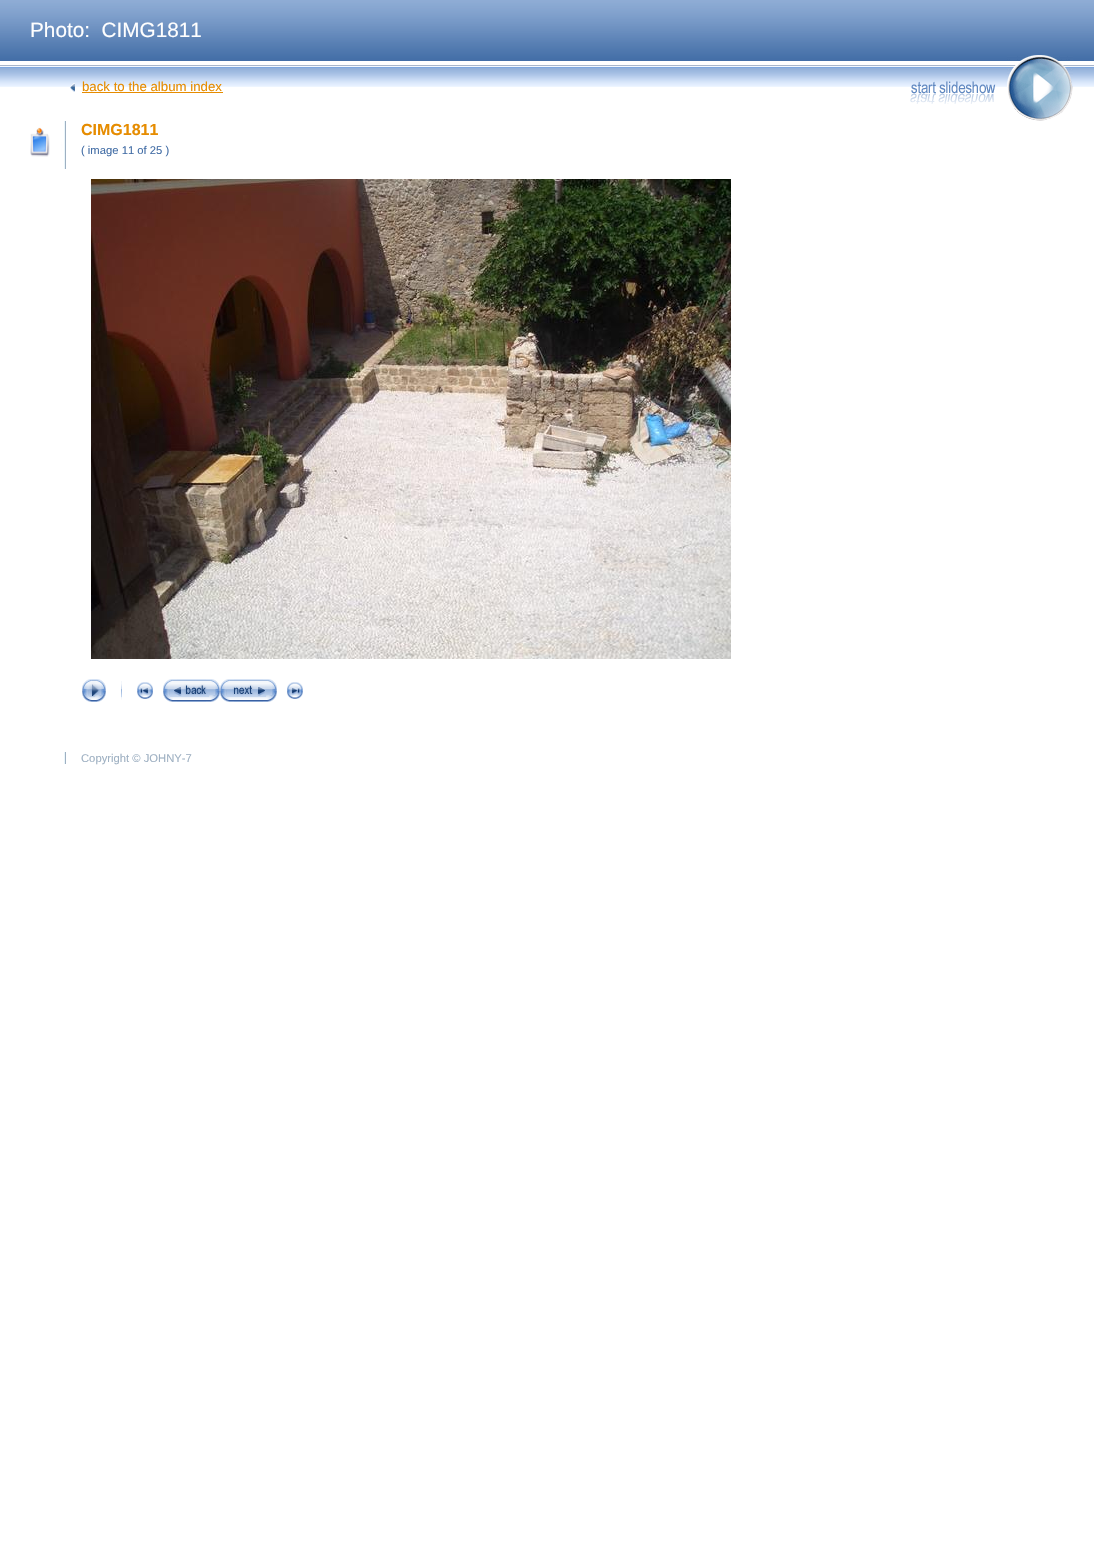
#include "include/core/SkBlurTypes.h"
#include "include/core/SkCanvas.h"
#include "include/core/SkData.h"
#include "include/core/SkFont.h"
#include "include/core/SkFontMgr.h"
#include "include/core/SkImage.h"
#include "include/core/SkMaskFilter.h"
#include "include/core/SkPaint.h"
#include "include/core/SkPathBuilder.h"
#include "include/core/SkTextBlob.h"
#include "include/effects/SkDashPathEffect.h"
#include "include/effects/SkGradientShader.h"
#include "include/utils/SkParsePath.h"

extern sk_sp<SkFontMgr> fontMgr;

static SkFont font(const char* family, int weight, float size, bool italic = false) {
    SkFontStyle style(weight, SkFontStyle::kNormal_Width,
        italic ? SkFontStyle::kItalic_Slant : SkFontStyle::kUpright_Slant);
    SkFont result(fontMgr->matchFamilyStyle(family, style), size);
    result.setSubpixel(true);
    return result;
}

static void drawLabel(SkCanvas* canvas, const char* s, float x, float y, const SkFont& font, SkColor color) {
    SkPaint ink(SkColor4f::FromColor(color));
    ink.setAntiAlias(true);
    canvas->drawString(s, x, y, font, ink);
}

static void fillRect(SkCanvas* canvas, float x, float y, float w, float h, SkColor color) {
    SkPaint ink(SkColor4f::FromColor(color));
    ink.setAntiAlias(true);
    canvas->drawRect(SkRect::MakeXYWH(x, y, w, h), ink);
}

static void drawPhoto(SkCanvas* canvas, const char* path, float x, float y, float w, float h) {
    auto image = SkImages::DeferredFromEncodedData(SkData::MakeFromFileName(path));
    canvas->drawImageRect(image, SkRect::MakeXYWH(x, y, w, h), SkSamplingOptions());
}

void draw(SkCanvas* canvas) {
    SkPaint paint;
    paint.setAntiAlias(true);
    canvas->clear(0xFFFFFFFF);
    drawPhoto(canvas, "assets/img1.png", 0, 0, 904, 121);
    SkFont font1 = font("Liberation Sans", 400, 20.75f);
    drawLabel(canvas, "Photo:  CIMG1811", 30, 37, font1, 0xFFFFFFFF);
    drawPhoto(canvas, "assets/img2.png", 70, 83, 5, 9);
    SkFont font2 = font("Liberation Sans", 400, 13.25f);
    drawLabel(canvas, "back to the album index", 82, 91, font2, 0xFFE68C00);
    fillRect(canvas, 82, 92, 141, 1, 0xFFE68C00);
    drawPhoto(canvas, "assets/img3.png", 904, 0, 190, 121);
    drawPhoto(canvas, "assets/img4.png", 910, 55, 163, 66);
    drawPhoto(canvas, "assets/img5.png", 30, 121, 36, 48);
    SkFont font3 = font("Liberation Sans", 700, 16);
    drawLabel(canvas, "CIMG1811", 81, 135, font3, 0xFFE68C00);
    SkFont font4 = font("Liberation Sans", 400, 11.25f);
    drawLabel(canvas, "( image 11 of 25 )", 81, 154, font4, 0xFF416CA5);
    drawPhoto(canvas, "assets/img6.png", 91, 179, 640, 480);
    drawPhoto(canvas, "assets/img7.png", 82, 679, 24, 23);
    drawPhoto(canvas, "assets/img8.png", 121, 681, 1, 19);
    drawPhoto(canvas, "assets/img9.png", 137, 682, 16, 17);
    drawPhoto(canvas, "assets/img10.png", 163, 679, 57, 23);
    drawPhoto(canvas, "assets/img11.png", 220, 679, 57, 23);
    drawPhoto(canvas, "assets/img12.png", 287, 682, 16, 17);
    drawPhoto(canvas, "assets/img13.png", 64, 752, 2, 12);
    drawLabel(canvas, "Copyright © JOHNY-7", 81, 762, font4, 0xFF9EB0C2);
}
